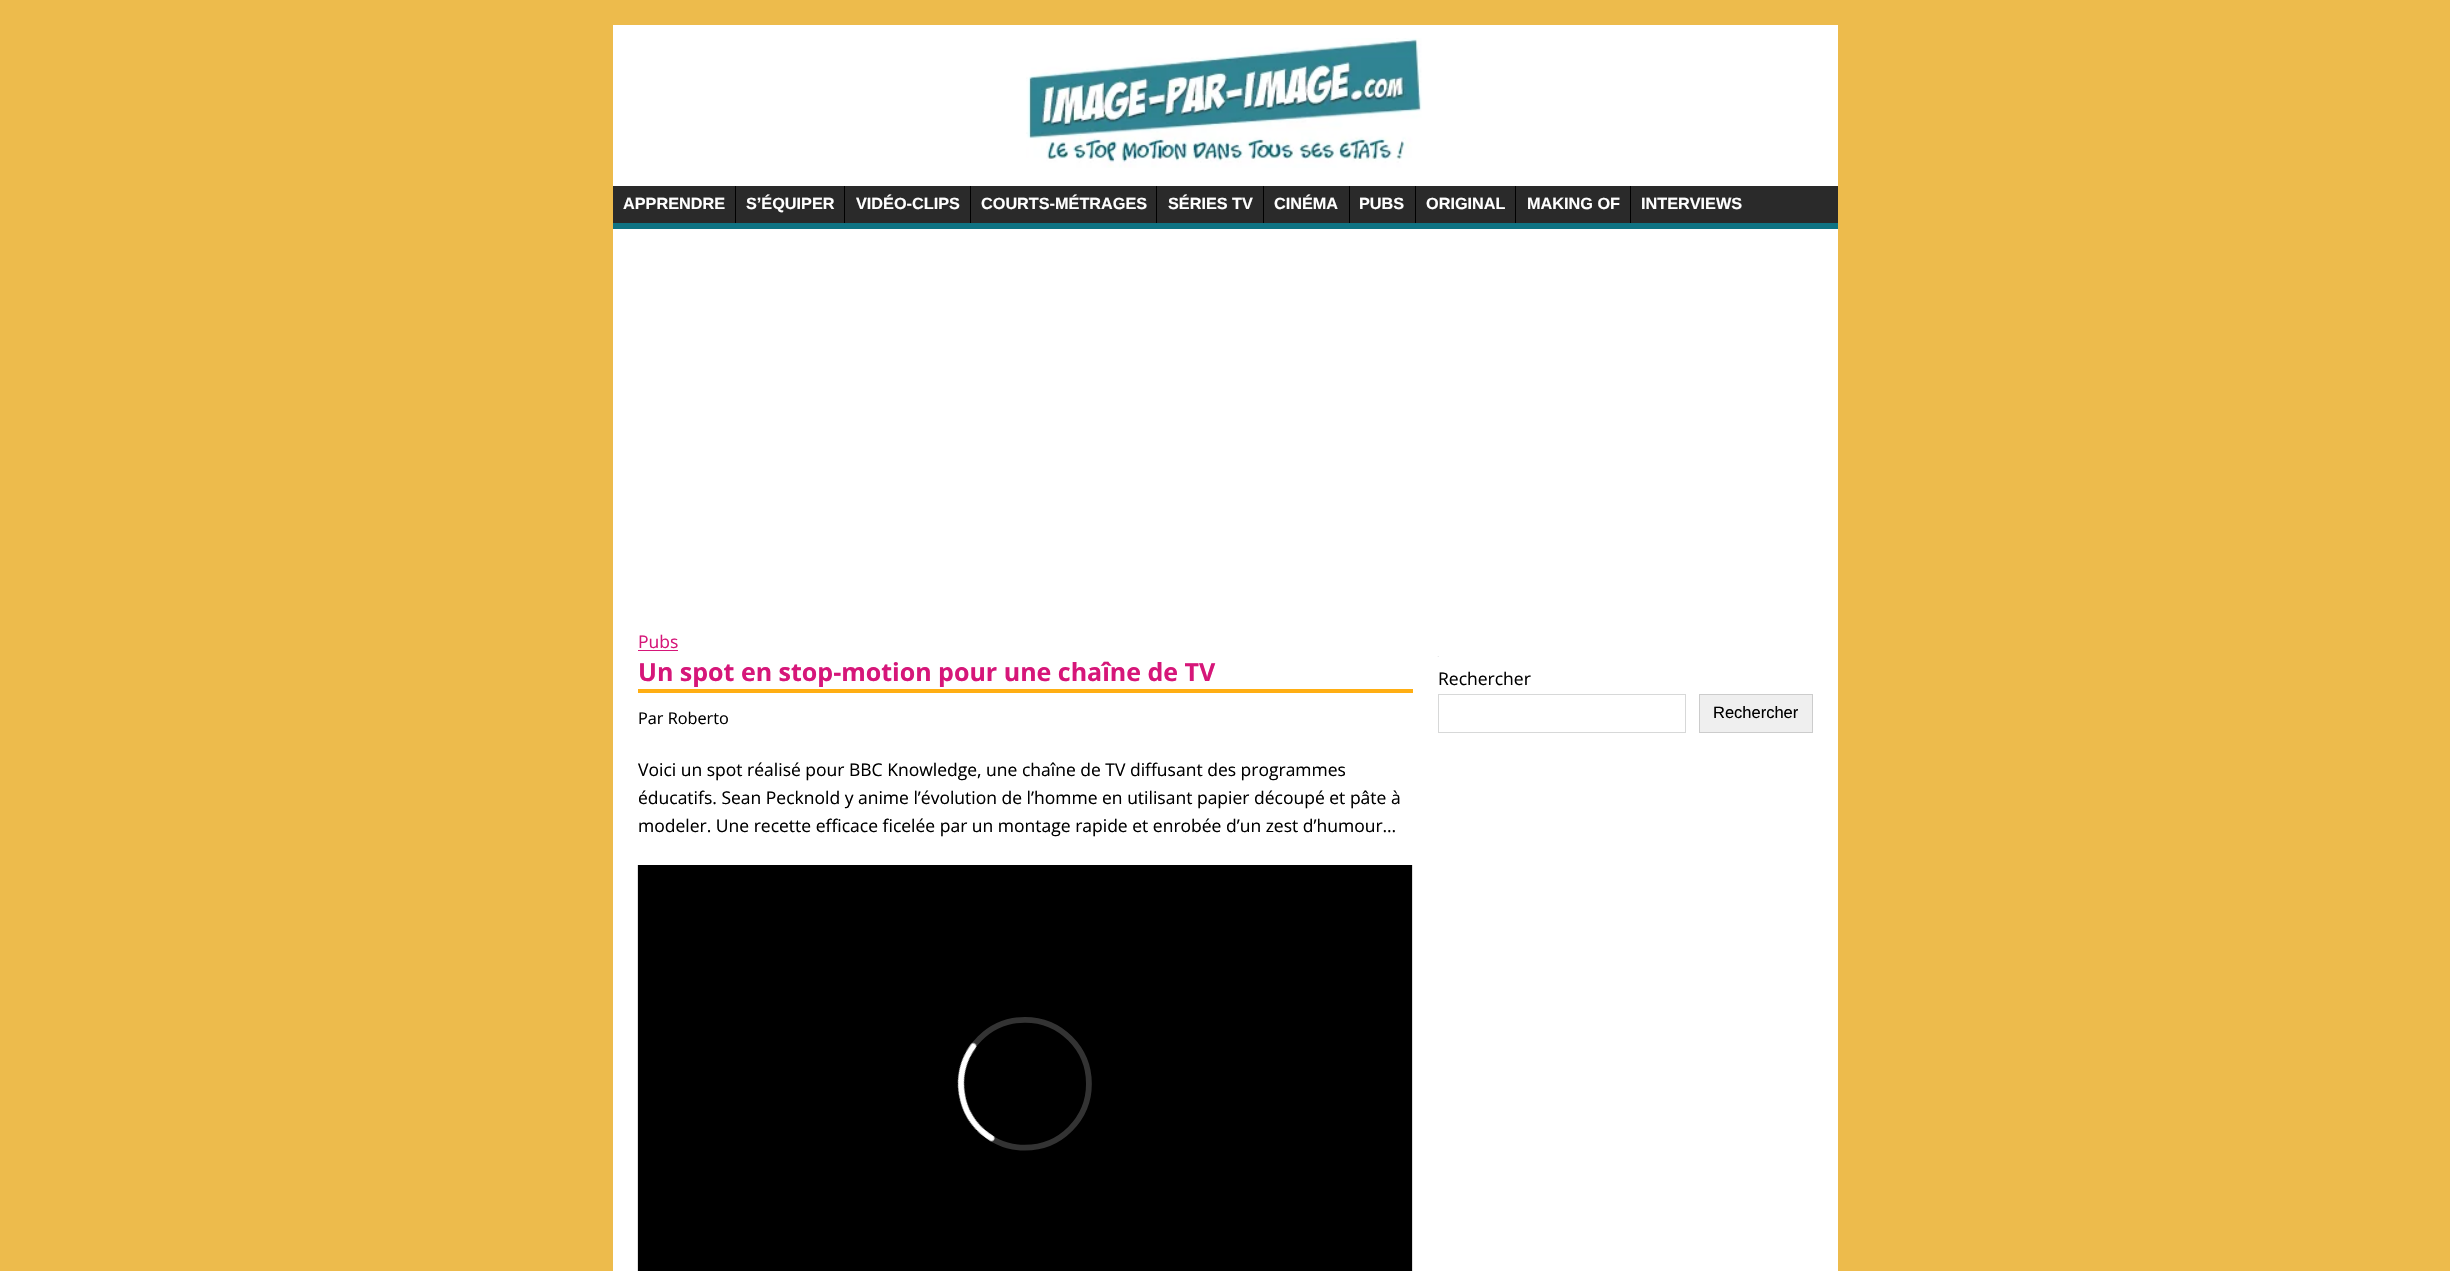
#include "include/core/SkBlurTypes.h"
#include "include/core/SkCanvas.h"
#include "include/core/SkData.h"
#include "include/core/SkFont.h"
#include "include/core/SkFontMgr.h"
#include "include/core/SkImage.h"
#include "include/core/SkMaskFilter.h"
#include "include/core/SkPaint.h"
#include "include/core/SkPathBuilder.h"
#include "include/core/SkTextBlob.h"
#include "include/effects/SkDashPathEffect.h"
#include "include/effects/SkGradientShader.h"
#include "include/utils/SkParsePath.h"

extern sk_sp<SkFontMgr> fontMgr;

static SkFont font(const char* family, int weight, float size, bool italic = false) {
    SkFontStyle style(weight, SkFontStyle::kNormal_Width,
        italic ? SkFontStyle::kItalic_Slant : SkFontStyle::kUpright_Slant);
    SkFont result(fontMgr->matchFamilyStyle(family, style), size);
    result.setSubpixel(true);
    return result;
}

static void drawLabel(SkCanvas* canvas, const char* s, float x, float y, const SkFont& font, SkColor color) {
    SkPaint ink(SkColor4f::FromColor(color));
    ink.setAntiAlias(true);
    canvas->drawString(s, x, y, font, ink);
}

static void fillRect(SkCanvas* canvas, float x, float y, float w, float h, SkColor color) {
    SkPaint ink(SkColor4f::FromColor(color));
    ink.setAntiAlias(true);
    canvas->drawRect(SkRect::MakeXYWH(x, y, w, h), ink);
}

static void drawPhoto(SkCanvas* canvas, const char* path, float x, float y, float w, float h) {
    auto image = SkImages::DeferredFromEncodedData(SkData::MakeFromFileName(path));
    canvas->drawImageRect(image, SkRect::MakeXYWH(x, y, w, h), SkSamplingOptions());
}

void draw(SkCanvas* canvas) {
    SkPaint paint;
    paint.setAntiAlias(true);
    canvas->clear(0xFFEDBB4C);
    fillRect(canvas, 613, 25, 1225, 161, 0xFFFFFFFF);
    drawPhoto(canvas, "assets/img1.png", 1026, 38, 396, 130);
    fillRect(canvas, 613, 186, 1225, 37, 0xFF2A2A2A);
    fillRect(canvas, 613, 223, 1225, 6, 0xFF0F7383);
    SkFont font1 = font("Liberation Sans", 700, 16.25f);
    drawLabel(canvas, "APPRENDRE", 623, 209, font1, 0xFFFFFFFF);
    fillRect(canvas, 735, 186, 1, 37, 0xFF000000);
    drawLabel(canvas, "S’ÉQUIPER", 746, 209, font1, 0xFFFFFFFF);
    fillRect(canvas, 844, 186, 1, 37, 0xFF000000);
    drawLabel(canvas, "VIDÉO-CLIPS", 856, 209, font1, 0xFFFFFFFF);
    fillRect(canvas, 970, 186, 1, 37, 0xFF000000);
    drawLabel(canvas, "COURTS-MÉTRAGES", 981, 209, font1, 0xFFFFFFFF);
    fillRect(canvas, 1156, 186, 1, 37, 0xFF000000);
    drawLabel(canvas, "SÉRIES TV", 1168, 209, font1, 0xFFFFFFFF);
    fillRect(canvas, 1263, 186, 1, 37, 0xFF000000);
    drawLabel(canvas, "CINÉMA", 1274, 209, font1, 0xFFFFFFFF);
    fillRect(canvas, 1349, 186, 1, 37, 0xFF000000);
    drawLabel(canvas, "PUBS", 1359, 209, font1, 0xFFFFFFFF);
    fillRect(canvas, 1415, 186, 1, 37, 0xFF000000);
    drawLabel(canvas, "ORIGINAL", 1426, 209, font1, 0xFFFFFFFF);
    fillRect(canvas, 1515, 186, 1, 37, 0xFF000000);
    drawLabel(canvas, "MAKING OF", 1527, 209, font1, 0xFFFFFFFF);
    fillRect(canvas, 1630, 186, 1, 37, 0xFF000000);
    drawLabel(canvas, "INTERVIEWS", 1641, 209, font1, 0xFFFFFFFF);
    fillRect(canvas, 613, 229, 1225, 1042, 0xFFFFFFFF);
    SkFont font2 = font("Open Sans", 400, 17.5f);
    drawLabel(canvas, "Pubs", 638, 648, font2, 0xFFD61679);
    fillRect(canvas, 638, 650, 40, 1, 0xFFD61679);
    fillRect(canvas, 638, 689, 775, 4, 0xFFFFAE13);
    SkFont font3 = font("Open Sans", 700, 25);
    drawLabel(canvas, "Un spot en stop-motion pour une chaîne de TV", 638, 681, font3, 0xFFD61679);
    SkFont font4 = font("Open Sans", 400, 16.25f);
    drawLabel(canvas, "Par Roberto", 638, 724, font4, 0xFF000000);
    drawLabel(canvas, "Voici un spot réalisé pour BBC Knowledge, une chaîne de TV diffusant des programmes", 638, 776, font2, 0xFF000000);
    drawLabel(canvas, "éducatifs. Sean Pecknold y anime l’évolution de l’homme en utilisant papier découpé et pâte à", 638, 804, font2, 0xFF000000);
    drawLabel(canvas, "modeler. Une recette efficace ficelée par un montage rapide et enrobée d’un zest d’humour…", 638, 832, font2, 0xFF000000);
    drawPhoto(canvas, "assets/img2.png", 637, 865, 776, 406);
    drawPhoto(canvas, "assets/img3.png", 1437, 656, 2, 1);
    drawLabel(canvas, "Rechercher", 1438, 685, font2, 0xFF000000);
    paint.setStroke(true);
    paint.setStrokeWidth(1);
    paint.setColor(0xFFD7D8D8);
    canvas->drawRect(SkRect::MakeXYWH(1438.5f, 694.5f, 247, 38), paint);
    paint.setStroke(false);
    paint.setColor(0xFFEFEFEF);
    canvas->drawRect(SkRect::MakeXYWH(1699.5f, 694.5f, 113, 38), paint);
    paint.setStroke(true);
    paint.setColor(0xFFCCCCCC);
    canvas->drawRect(SkRect::MakeXYWH(1699.5f, 694.5f, 113, 38), paint);
    SkFont font5 = font("Liberation Sans", 400, 16.5f);
    drawLabel(canvas, "Rechercher", 1713, 718, font5, 0xFF000000);
}
